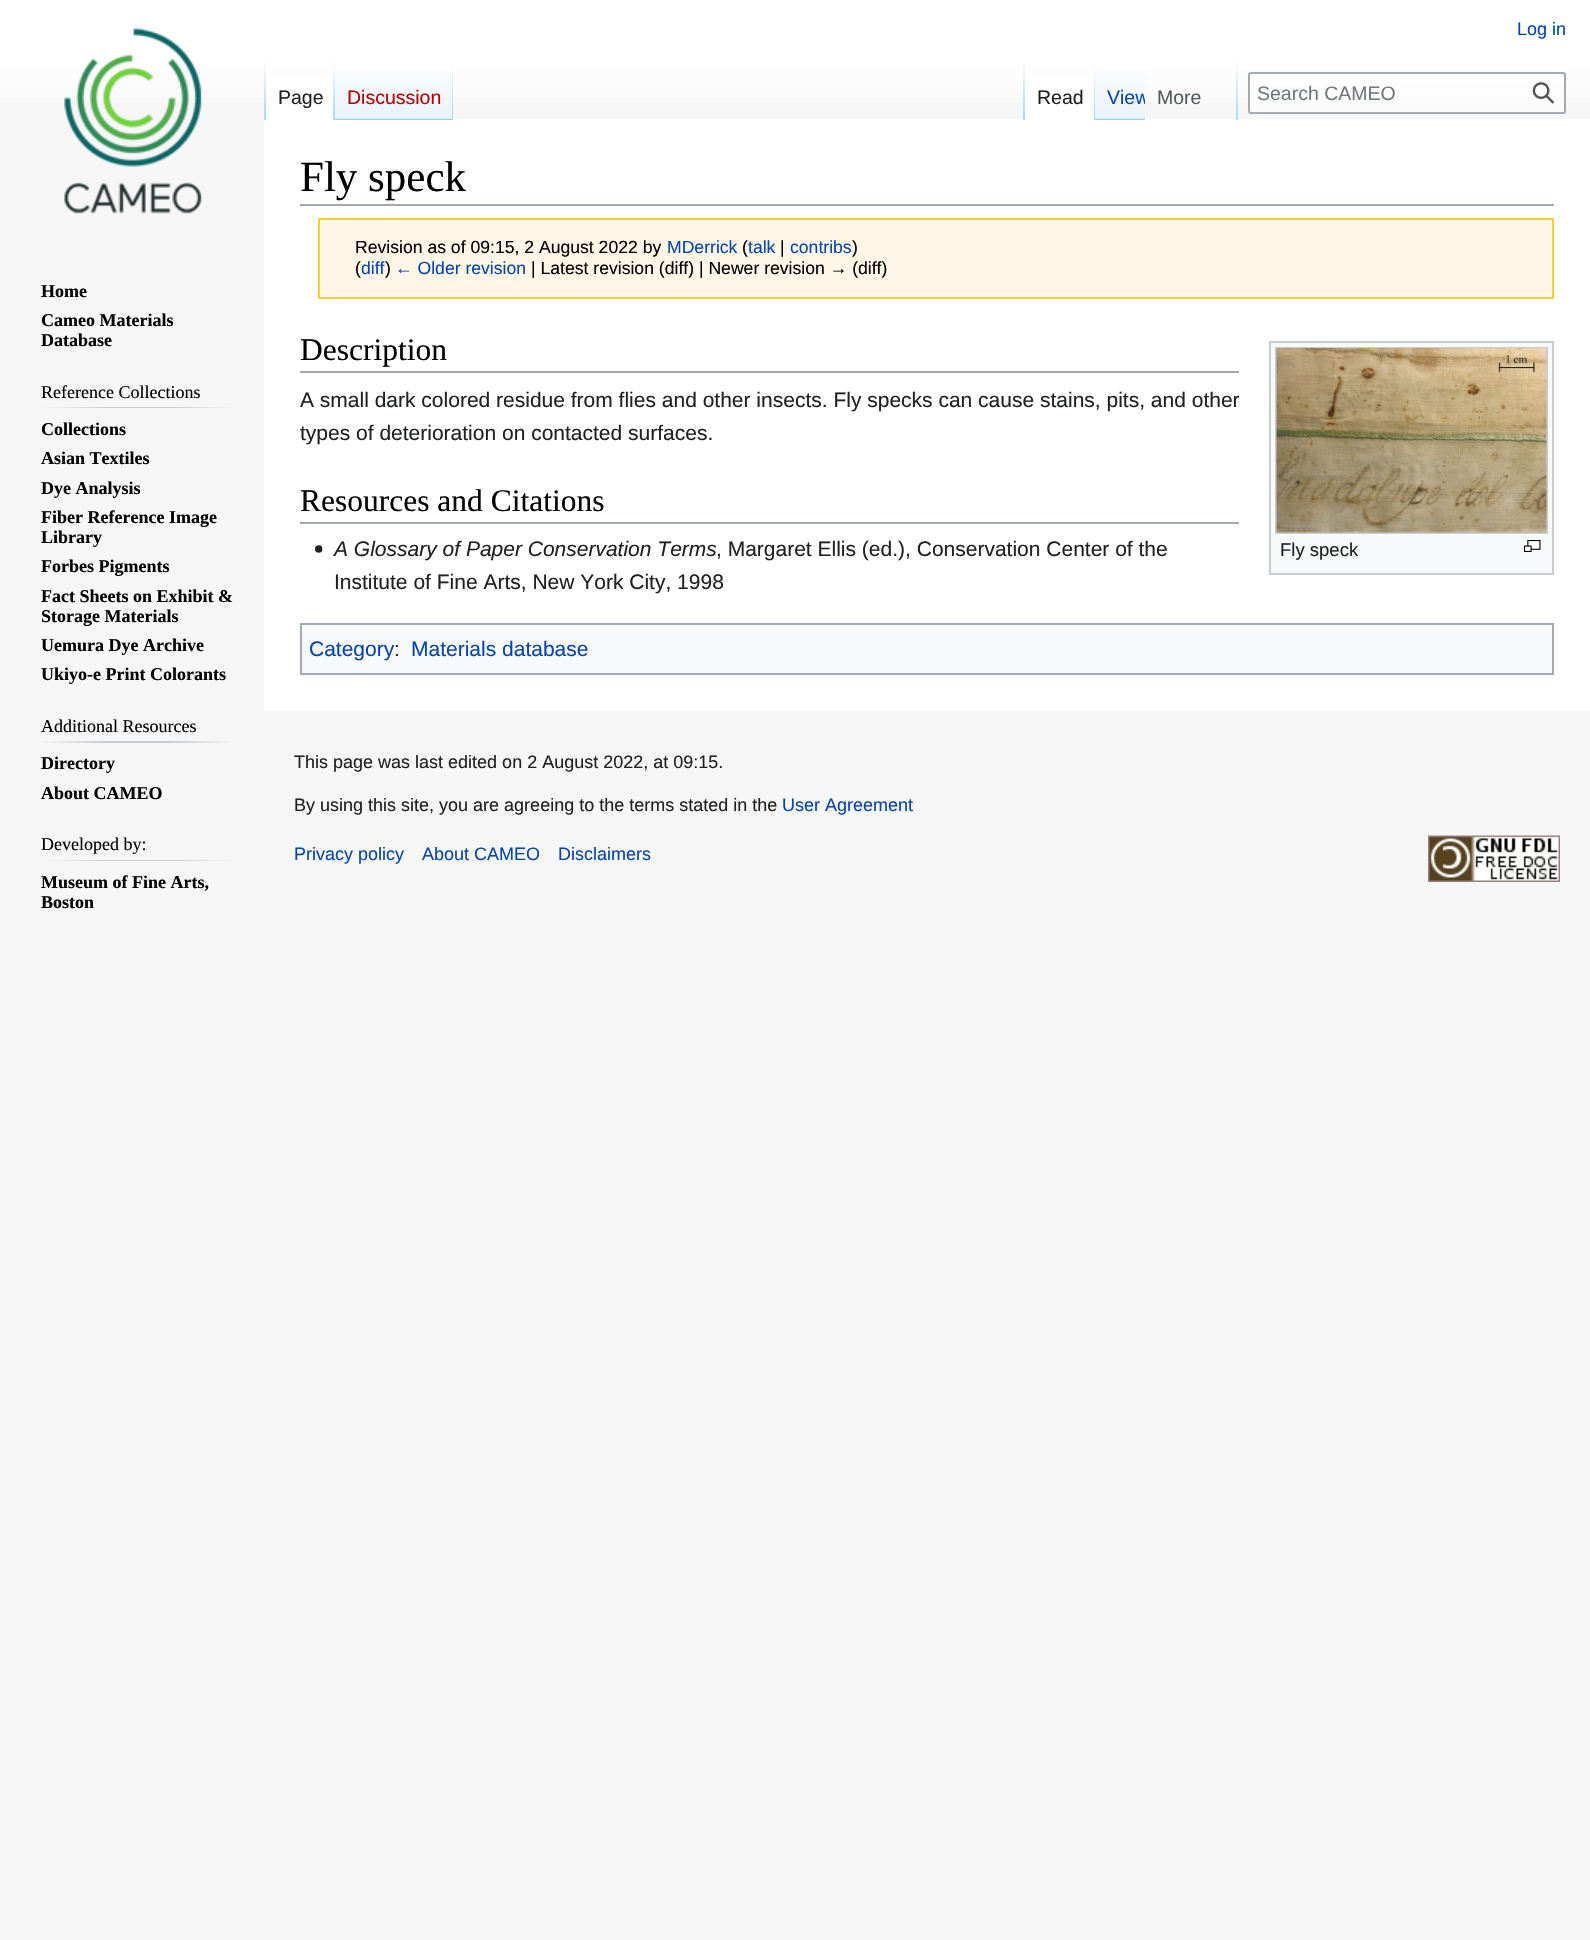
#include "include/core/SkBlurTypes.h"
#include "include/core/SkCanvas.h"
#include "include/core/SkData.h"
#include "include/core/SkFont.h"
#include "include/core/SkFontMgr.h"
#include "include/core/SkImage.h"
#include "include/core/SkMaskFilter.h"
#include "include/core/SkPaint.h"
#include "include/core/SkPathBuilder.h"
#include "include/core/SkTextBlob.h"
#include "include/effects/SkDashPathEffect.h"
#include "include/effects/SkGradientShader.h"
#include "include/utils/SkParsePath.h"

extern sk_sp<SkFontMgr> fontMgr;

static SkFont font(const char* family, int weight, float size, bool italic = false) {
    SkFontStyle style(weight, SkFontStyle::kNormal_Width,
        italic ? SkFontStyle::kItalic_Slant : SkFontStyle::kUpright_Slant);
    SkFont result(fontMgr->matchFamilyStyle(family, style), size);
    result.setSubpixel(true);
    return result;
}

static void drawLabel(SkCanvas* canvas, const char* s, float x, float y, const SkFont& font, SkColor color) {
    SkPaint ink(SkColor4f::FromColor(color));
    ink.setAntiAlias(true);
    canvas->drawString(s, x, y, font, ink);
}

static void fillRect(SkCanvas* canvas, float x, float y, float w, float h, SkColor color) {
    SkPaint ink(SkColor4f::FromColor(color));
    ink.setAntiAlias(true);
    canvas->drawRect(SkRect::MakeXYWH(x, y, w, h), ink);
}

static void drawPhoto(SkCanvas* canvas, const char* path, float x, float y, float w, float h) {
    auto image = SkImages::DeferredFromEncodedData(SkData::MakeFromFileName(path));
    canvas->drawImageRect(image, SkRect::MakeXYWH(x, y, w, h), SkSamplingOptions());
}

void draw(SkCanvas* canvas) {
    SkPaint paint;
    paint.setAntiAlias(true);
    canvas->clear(0xFFF6F6F6);
    {
        const SkColor colors[] = {0xFFFFFFFF, 0xFFF6F6F6};
        const float stops[] = {0.5f, 1};
        const SkPoint ends[] = {{795, 0}, {795, 120}};
        paint.setShader(SkGradientShader::MakeLinear(ends, colors, stops, 2, SkTileMode::kClamp));
        paint.setAlpha(255);
    }
    canvas->drawRect(SkRect::MakeXYWH(0, 0, 1590, 103), paint);
    SkFont font1 = font("Liberation Sans", 400, 18);
    drawLabel(canvas, "Log in", 1517, 35, font1, 0xFF0645AD);
    fillRect(canvas, 264, 119, 1326, 592, 0xFFFFFFFF);
    {
        const SkColor colors[] = {0x00A7D7F9, 0xFFA7D7F9};
        const float stops[] = {0, 1};
        const SkPoint ends[] = {{265, 60}, {265, 120}};
        paint.setShader(SkGradientShader::MakeLinear(ends, colors, stops, 2, SkTileMode::kClamp));
        paint.setAlpha(255);
    }
    canvas->drawRect(SkRect::MakeXYWH(264, 60, 2, 60), paint);
    fillRect(canvas, 266, 77, 67, 42, 0xFFFFFFFF);
    {
        const SkColor colors[] = {0xFFFFFFFF, 0xFFA7D7F9};
        const float stops[] = {0, 1};
        const SkPoint ends[] = {{334, 60}, {334, 120}};
        paint.setShader(SkGradientShader::MakeLinear(ends, colors, stops, 2, SkTileMode::kClamp));
        paint.setAlpha(255);
    }
    canvas->drawRect(SkRect::MakeXYWH(333, 60, 2, 60), paint);
    SkFont font2 = font("Liberation Sans", 400, 19.5f);
    drawLabel(canvas, "Page", 278, 104, font2, 0xFF202122);
    {
        const SkColor colors[] = {0xFF77C1F6, 0xFFE8F2F8, 0xFFFFFFFF};
        const float stops[] = {0, 0.03f, 1};
        const SkPoint ends[] = {{394, 120}, {394, 60}};
        paint.setShader(SkGradientShader::MakeLinear(ends, colors, stops, 3, SkTileMode::kClamp));
        paint.setAlpha(255);
    }
    canvas->drawRect(SkRect::MakeXYWH(335, 69, 118, 51), paint);
    {
        const SkColor colors[] = {0x00A7D7F9, 0xFFA7D7F9};
        const float stops[] = {0, 1};
        const SkPoint ends[] = {{452, 60}, {452, 120}};
        paint.setShader(SkGradientShader::MakeLinear(ends, colors, stops, 2, SkTileMode::kClamp));
        paint.setAlpha(255);
    }
    canvas->drawRect(SkRect::MakeXYWH(452, 60, 1, 60), paint);
    drawLabel(canvas, "Discussion", 347, 104, font2, 0xFFBA0000);
    {
        const SkColor colors[] = {0x00A7D7F9, 0xFFA7D7F9};
        const float stops[] = {0, 1};
        const SkPoint ends[] = {{1024, 60}, {1024, 120}};
        paint.setShader(SkGradientShader::MakeLinear(ends, colors, stops, 2, SkTileMode::kClamp));
        paint.setAlpha(255);
    }
    canvas->drawRect(SkRect::MakeXYWH(1023, 60, 2, 60), paint);
    fillRect(canvas, 1025, 77, 69, 42, 0xFFFFFFFF);
    {
        const SkColor colors[] = {0xFFFFFFFF, 0xFFA7D7F9};
        const float stops[] = {0, 1};
        const SkPoint ends[] = {{1094, 60}, {1094, 120}};
        paint.setShader(SkGradientShader::MakeLinear(ends, colors, stops, 2, SkTileMode::kClamp));
        paint.setAlpha(255);
    }
    canvas->drawRect(SkRect::MakeXYWH(1094, 60, 1, 60), paint);
    drawLabel(canvas, "Read", 1037, 104, font2, 0xFF202122);
    {
        const SkColor colors[] = {0xFF77C1F6, 0xFFE8F2F8, 0xFFFFFFFF};
        const float stops[] = {0, 0.03f, 1};
        const SkPoint ends[] = {{1120, 120}, {1120, 60}};
        paint.setShader(SkGradientShader::MakeLinear(ends, colors, stops, 3, SkTileMode::kClamp));
        paint.setAlpha(255);
    }
    canvas->drawRect(SkRect::MakeXYWH(1095, 69, 50, 51), paint);
    canvas->save();
    canvas->clipRect(SkRect::MakeXYWH(1095, 60, 50, 60));
    drawLabel(canvas, "View", 1107, 104, font2, 0xFF0645AD);
    canvas->restore();
    {
        const SkColor colors[] = {0x00A7D7F9, 0xFFA7D7F9};
        const float stops[] = {0, 1};
        const SkPoint ends[] = {{1237, 60}, {1237, 120}};
        paint.setShader(SkGradientShader::MakeLinear(ends, colors, stops, 2, SkTileMode::kClamp));
        paint.setAlpha(255);
    }
    canvas->drawRect(SkRect::MakeXYWH(1236, 60, 2, 60), paint);
    drawLabel(canvas, "More", 1157, 104, font2, 0xFF54595D);
    paint.setShader(nullptr);
    paint.setColor(0x80FFFFFF);
    canvas->drawRoundRect(SkRect::MakeXYWH(1249, 73, 316, 40), 2, 2, paint);
    paint.setStroke(true);
    paint.setStrokeWidth(2);
    paint.setColor(0xFFA2A9B1);
    canvas->drawRoundRect(SkRect::MakeXYWH(1249, 73, 316, 40), 2, 2, paint);
    drawLabel(canvas, "Search CAMEO", 1257, 100, font2, 0xFF72777D);
    drawPhoto(canvas, "assets/img1.png", 1532, 82, 23, 22);
    drawPhoto(canvas, "assets/img2.png", 64, 28, 138, 186);
    SkFont font3 = font("Liberation Serif", 700, 18);
    drawLabel(canvas, "Home", 41, 297, font3, 0xFF000000);
    drawLabel(canvas, "Cameo Materials", 41, 326, font3, 0xFF000000);
    drawLabel(canvas, "Database", 41, 346, font3, 0xFF000000);
    paint.setStroke(false);
    {
        const SkColor colors[] = {0xFFF6F6F6, 0xFFC8CCD1, 0xFFC8CCD1, 0xFFF6F6F6};
        const float stops[] = {0, 0.33f, 0.66f, 1};
        const SkPoint ends[] = {{41, 407}, {237, 407}};
        paint.setShader(SkGradientShader::MakeLinear(ends, colors, stops, 4, SkTileMode::kClamp));
        paint.setAlpha(255);
    }
    canvas->drawRect(SkRect::MakeXYWH(41, 407, 196, 1), paint);
    SkFont font4 = font("Liberation Serif", 400, 18);
    drawLabel(canvas, "Reference Collections", 41, 398, font4, 0xFF000000);
    drawLabel(canvas, "Collections", 41, 435, font3, 0xFF000000);
    drawLabel(canvas, "Asian Textiles", 41, 464, font3, 0xFF000000);
    drawLabel(canvas, "Dye Analysis", 41, 494, font3, 0xFF000000);
    drawLabel(canvas, "Fiber Reference Image", 41, 523, font3, 0xFF000000);
    drawLabel(canvas, "Library", 41, 543, font3, 0xFF000000);
    drawLabel(canvas, "Forbes Pigments", 41, 572, font3, 0xFF000000);
    drawLabel(canvas, "Fact Sheets on Exhibit &", 41, 602, font3, 0xFF000000);
    drawLabel(canvas, "Storage Materials", 41, 622, font3, 0xFF000000);
    drawLabel(canvas, "Uemura Dye Archive", 41, 651, font3, 0xFF000000);
    drawLabel(canvas, "Ukiyo-e Print Colorants", 41, 680, font3, 0xFF000000);
    {
        const SkColor colors[] = {0xFFF6F6F6, 0xFFC8CCD1, 0xFFC8CCD1, 0xFFF6F6F6};
        const float stops[] = {0, 0.33f, 0.66f, 1};
        const SkPoint ends[] = {{41, 742}, {237, 742}};
        paint.setShader(SkGradientShader::MakeLinear(ends, colors, stops, 4, SkTileMode::kClamp));
        paint.setAlpha(255);
    }
    canvas->drawRect(SkRect::MakeXYWH(41, 741, 196, 2), paint);
    drawLabel(canvas, "Additional Resources", 41, 732, font4, 0xFF000000);
    drawLabel(canvas, "Directory", 41, 769, font3, 0xFF000000);
    drawLabel(canvas, "About CAMEO", 41, 799, font3, 0xFF000000);
    {
        const SkColor colors[] = {0xFFF6F6F6, 0xFFC8CCD1, 0xFFC8CCD1, 0xFFF6F6F6};
        const float stops[] = {0, 0.33f, 0.66f, 1};
        const SkPoint ends[] = {{41, 860}, {237, 860}};
        paint.setShader(SkGradientShader::MakeLinear(ends, colors, stops, 4, SkTileMode::kClamp));
        paint.setAlpha(255);
    }
    canvas->drawRect(SkRect::MakeXYWH(41, 860, 196, 1), paint);
    drawLabel(canvas, "Developed by:", 41, 850, font4, 0xFF000000);
    drawLabel(canvas, "Museum of Fine Arts,", 41, 888, font3, 0xFF000000);
    drawLabel(canvas, "Boston", 41, 908, font3, 0xFF000000);
    fillRect(canvas, 300, 204, 1254, 2, 0xFFA2A9B1);
    SkFont font5 = font("Liberation Serif", 400, 43);
    drawLabel(canvas, "Fly speck", 300, 191, font5, 0xFF000000);
    paint.setShader(nullptr);
    paint.setColor(0xFFFEF6E7);
    canvas->drawRect(SkRect::MakeXYWH(319, 219, 1234, 79), paint);
    paint.setStroke(true);
    paint.setColor(0xFFFFCC33);
    canvas->drawRect(SkRect::MakeXYWH(319, 219, 1234, 79), paint);
    SkFont font6 = font("Liberation Sans", 400, 17.6f);
    drawLabel(canvas, "Revision as of 09:15, 2 August 2022 by", 355, 253, font6, 0xFF000000);
    drawLabel(canvas, "MDerrick", 667, 253, font6, 0xFF0645AD);
    drawLabel(canvas, "(", 742, 253, font6, 0xFF000000);
    drawLabel(canvas, "talk", 748, 253, font6, 0xFF0645AD);
    drawLabel(canvas, "|", 780, 253, font6, 0xFF000000);
    drawLabel(canvas, "contribs", 790, 253, font6, 0xFF0645AD);
    drawLabel(canvas, ")", 852, 253, font6, 0xFF000000);
    drawLabel(canvas, "(", 355, 274, font6, 0xFF000000);
    drawLabel(canvas, "diff", 361, 274, font6, 0xFF0645AD);
    drawLabel(canvas, ")", 385, 274, font6, 0xFF000000);
    drawLabel(canvas, "← Older revision", 395, 274, font6, 0xFF0645AD);
    drawLabel(canvas, "| Latest revision (diff) | Newer revision → (diff)", 531, 274, font6, 0xFF000000);
    fillRect(canvas, 300, 371, 939, 2, 0xFFA2A9B1);
    SkFont font7 = font("Liberation Serif", 400, 31.5f);
    drawLabel(canvas, "Description", 300, 360, font7, 0xFF000000);
    SkFont font8 = font("Liberation Sans", 400, 21);
    drawLabel(canvas, "A small dark colored residue from flies and other insects. Fly specks can cause stains, pits, and other", 300, 407, font8, 0xFF202122);
    drawLabel(canvas, "types of deterioration on contacted surfaces.", 300, 440, font8, 0xFF202122);
    fillRect(canvas, 300, 522, 939, 2, 0xFFA2A9B1);
    drawLabel(canvas, "Resources and Citations", 300, 511, font7, 0xFF000000);
    drawPhoto(canvas, "assets/img3.png", 315, 545, 8, 8);
    SkFont font9 = font("Liberation Sans", 400, 21, true);
    drawLabel(canvas, "A Glossary of Paper Conservation Terms", 334, 556, font9, 0xFF202122);
    drawLabel(canvas, ", Margaret Ellis (ed.), Conservation Center of the", 716, 556, font8, 0xFF202122);
    drawLabel(canvas, "Institute of Fine Arts, New York City, 1998", 334, 589, font8, 0xFF202122);
    paint.setStroke(false);
    paint.setColor(0xFFF8F9FA);
    canvas->drawRect(SkRect::MakeXYWH(1270, 342, 283, 232), paint);
    paint.setStroke(true);
    paint.setColor(0xFFC8CCD1);
    canvas->drawRect(SkRect::MakeXYWH(1270, 342, 283, 232), paint);
    canvas->drawRect(SkRect::MakeXYWH(1276, 348, 271, 185), paint);
    drawPhoto(canvas, "assets/img4.png", 1276, 348, 271, 185);
    SkFont font10 = font("Liberation Sans", 400, 18.5f);
    drawLabel(canvas, "Fly speck", 1280, 556, font10, 0xFF202122);
    drawPhoto(canvas, "assets/img5.png", 1524, 540, 17, 12);
    paint.setStroke(false);
    paint.setColor(0xFFF8F9FA);
    canvas->drawRect(SkRect::MakeXYWH(301, 624, 1252, 50), paint);
    paint.setStroke(true);
    paint.setColor(0xFFA2A9B1);
    canvas->drawRect(SkRect::MakeXYWH(301, 624, 1252, 50), paint);
    drawLabel(canvas, "Category", 309, 656, font8, 0xFF0645AD);
    drawLabel(canvas, ":", 394, 656, font8, 0xFF202122);
    drawLabel(canvas, "Materials database", 411, 656, font8, 0xFF0645AD);
    drawLabel(canvas, "This page was last edited on 2 August 2022, at 09:15.", 294, 768, font1, 0xFF202122);
    drawLabel(canvas, "By using this site, you are agreeing to the terms stated in the", 294, 811, font1, 0xFF202122);
    drawLabel(canvas, "User Agreement", 782, 811, font1, 0xFF0645AD);
    drawLabel(canvas, "Privacy policy", 294, 860, font1, 0xFF0645AD);
    drawLabel(canvas, "About CAMEO", 422, 860, font1, 0xFF0645AD);
    drawLabel(canvas, "Disclaimers", 558, 860, font1, 0xFF0645AD);
    drawPhoto(canvas, "assets/img6.png", 1428, 835, 132, 47);
}
